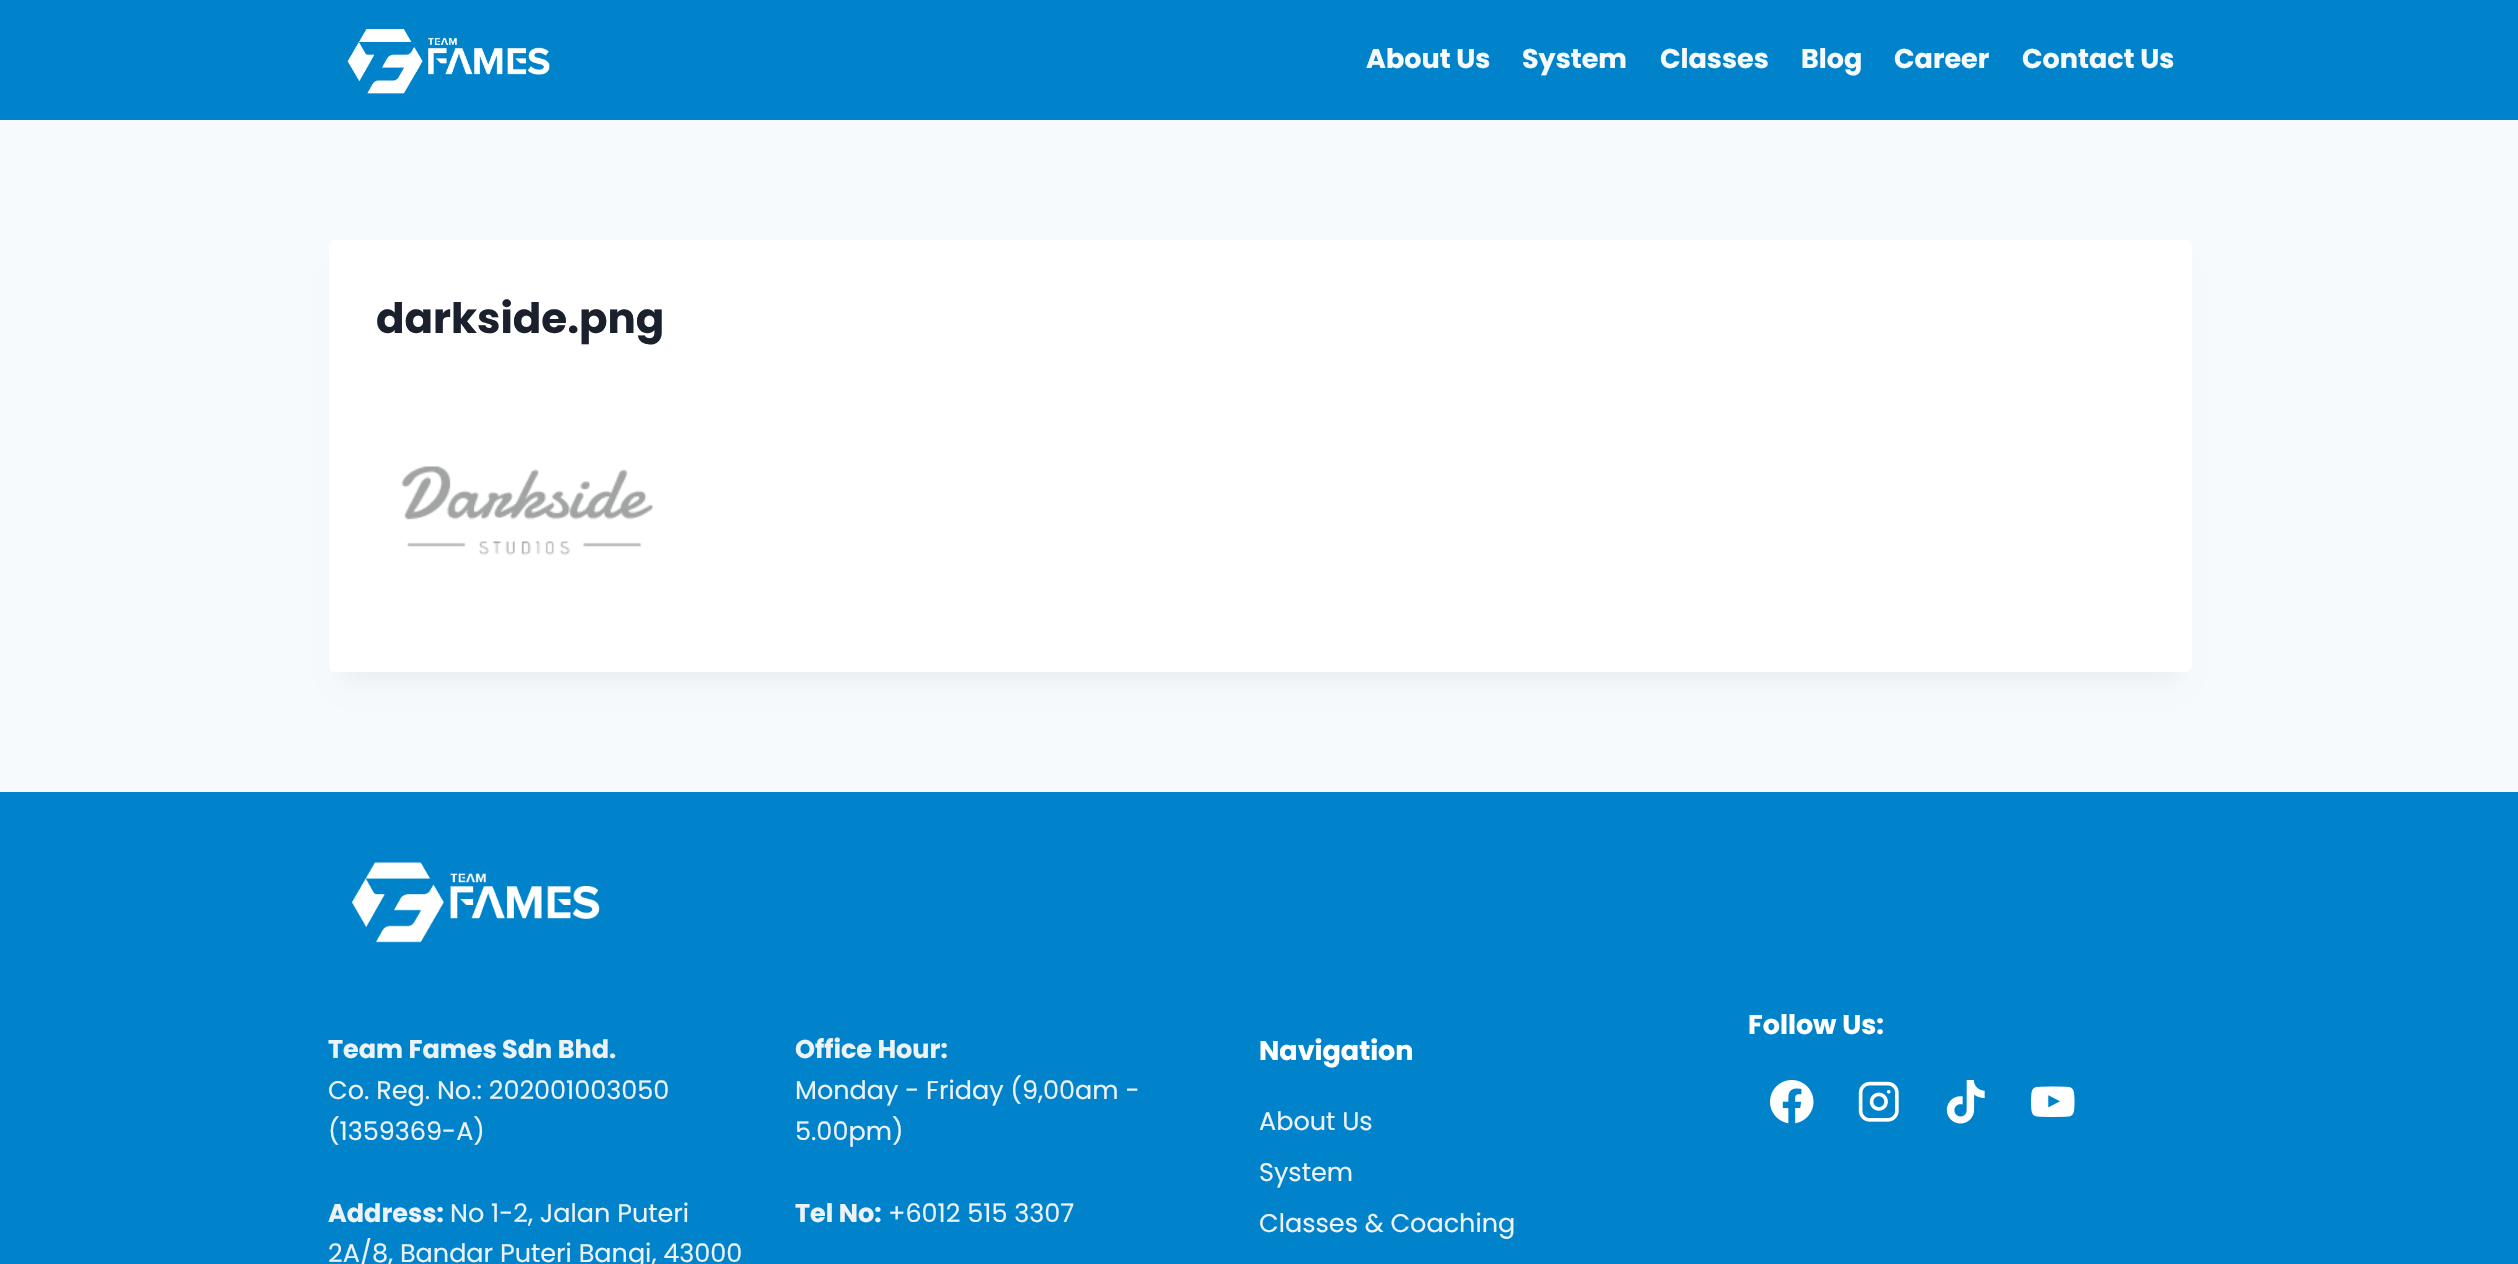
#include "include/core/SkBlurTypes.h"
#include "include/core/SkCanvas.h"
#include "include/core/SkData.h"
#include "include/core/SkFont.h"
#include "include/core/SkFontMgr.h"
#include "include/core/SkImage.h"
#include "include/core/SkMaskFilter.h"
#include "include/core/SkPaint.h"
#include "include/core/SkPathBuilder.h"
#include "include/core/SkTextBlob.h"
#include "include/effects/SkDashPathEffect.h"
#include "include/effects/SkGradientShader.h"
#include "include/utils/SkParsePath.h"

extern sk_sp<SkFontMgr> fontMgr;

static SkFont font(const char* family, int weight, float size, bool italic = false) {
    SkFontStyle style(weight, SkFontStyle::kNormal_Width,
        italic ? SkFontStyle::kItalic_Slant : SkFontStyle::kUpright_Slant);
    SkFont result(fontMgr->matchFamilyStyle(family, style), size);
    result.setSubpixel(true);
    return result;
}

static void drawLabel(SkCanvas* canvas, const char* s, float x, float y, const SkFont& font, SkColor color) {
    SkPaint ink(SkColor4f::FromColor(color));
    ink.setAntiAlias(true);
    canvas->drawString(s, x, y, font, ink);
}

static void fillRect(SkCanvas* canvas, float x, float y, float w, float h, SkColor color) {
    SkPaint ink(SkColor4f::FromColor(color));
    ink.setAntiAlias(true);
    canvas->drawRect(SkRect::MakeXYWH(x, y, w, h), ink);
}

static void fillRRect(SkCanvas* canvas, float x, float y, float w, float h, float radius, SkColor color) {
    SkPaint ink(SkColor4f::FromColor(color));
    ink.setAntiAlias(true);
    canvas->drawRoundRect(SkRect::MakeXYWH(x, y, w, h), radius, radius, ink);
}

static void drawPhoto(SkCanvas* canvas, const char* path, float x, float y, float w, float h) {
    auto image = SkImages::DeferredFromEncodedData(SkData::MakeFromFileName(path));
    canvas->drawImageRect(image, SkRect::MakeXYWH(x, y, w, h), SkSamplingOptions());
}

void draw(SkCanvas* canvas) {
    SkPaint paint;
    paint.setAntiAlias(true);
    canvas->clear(0xFFF7FAFC);
    fillRect(canvas, 0, 0, 2518, 120, 0xFF0083CB);
    drawPhoto(canvas, "assets/img1.png", 347, 29, 203, 65);
    SkFont font1 = font("Poppins", 700, 27);
    drawLabel(canvas, "About Us", 1366, 68, font1, 0xFFF7FAFC);
    drawLabel(canvas, "System", 1522, 68, font1, 0xFFF7FAFC);
    drawLabel(canvas, "Classes", 1660, 68, font1, 0xFFF7FAFC);
    drawLabel(canvas, "Blog", 1801, 68, font1, 0xFFF7FAFC);
    drawLabel(canvas, "Career", 1894, 68, font1, 0xFFF7FAFC);
    drawLabel(canvas, "Contact Us", 2022, 68, font1, 0xFFF7FAFC);
    paint.setColor(0x0D000000);
    paint.setMaskFilter(SkMaskFilter::MakeBlur(kNormal_SkBlurStyle, 11));
    canvas->drawRect(SkRect::MakeXYWH(344, 278, 1833, 402), paint);
    paint.setMaskFilter(nullptr);
    fillRRect(canvas, 329, 240, 1863, 432, 6, 0xFFFFFFFF);
    SkFont font2 = font("Poppins", 700, 42);
    drawLabel(canvas, "darkside.png", 376, 333, font2, 0xFF1A202C);
    drawPhoto(canvas, "assets/img2.png", 401, 466, 252, 90);
    fillRect(canvas, 0, 792, 2518, 472, 0xFF0083CB);
    drawPhoto(canvas, "assets/img3.png", 351, 862, 249, 81);
    drawLabel(canvas, "Follow Us:", 1748, 1034, font1, 0xFFFFFFFF);
    drawPhoto(canvas, "assets/img4.png", 1770, 1080, 44, 44);
    drawPhoto(canvas, "assets/img5.png", 1858, 1081, 41, 41);
    drawPhoto(canvas, "assets/img6.png", 1946, 1080, 39, 44);
    drawPhoto(canvas, "assets/img7.png", 2031, 1086, 44, 32);
    SkFont font3 = font("Poppins", 700, 25.5f);
    drawLabel(canvas, "Team Fames Sdn Bhd.", 328, 1058, font3, 0xFFEDF2F7);
    SkFont font4 = font("Poppins", 400, 25.5f);
    drawLabel(canvas, "Co. Reg. No.: 202001003050", 328, 1099, font4, 0xFFEDF2F7);
    drawLabel(canvas, "(1359369-A)", 328, 1140, font4, 0xFFEDF2F7);
    drawLabel(canvas, "Address:", 328, 1222, font3, 0xFFEDF2F7);
    drawLabel(canvas, "No 1-2, Jalan Puteri", 450, 1222, font4, 0xFFEDF2F7);
    drawLabel(canvas, "2A/8, Bandar Puteri Bangi, 43000", 328, 1262, font4, 0xFFEDF2F7);
    drawLabel(canvas, "Office Hour:", 795, 1058, font3, 0xFFEDF2F7);
    drawLabel(canvas, "Monday - Friday (9,00am -", 795, 1099, font4, 0xFFEDF2F7);
    drawLabel(canvas, "5.00pm)", 795, 1140, font4, 0xFFEDF2F7);
    drawLabel(canvas, "Tel No:", 795, 1222, font3, 0xFFEDF2F7);
    drawLabel(canvas, "+6012 515 3307", 888, 1222, font4, 0xFFEDF2F7);
    drawLabel(canvas, "Navigation", 1259, 1060, font1, 0xFFFFFFFF);
    drawLabel(canvas, "About Us", 1259, 1130, font4, 0xFFEDF2F7);
    drawLabel(canvas, "System", 1259, 1181, font4, 0xFFEDF2F7);
    drawLabel(canvas, "Classes & Coaching", 1259, 1232, font4, 0xFFEDF2F7);
}
